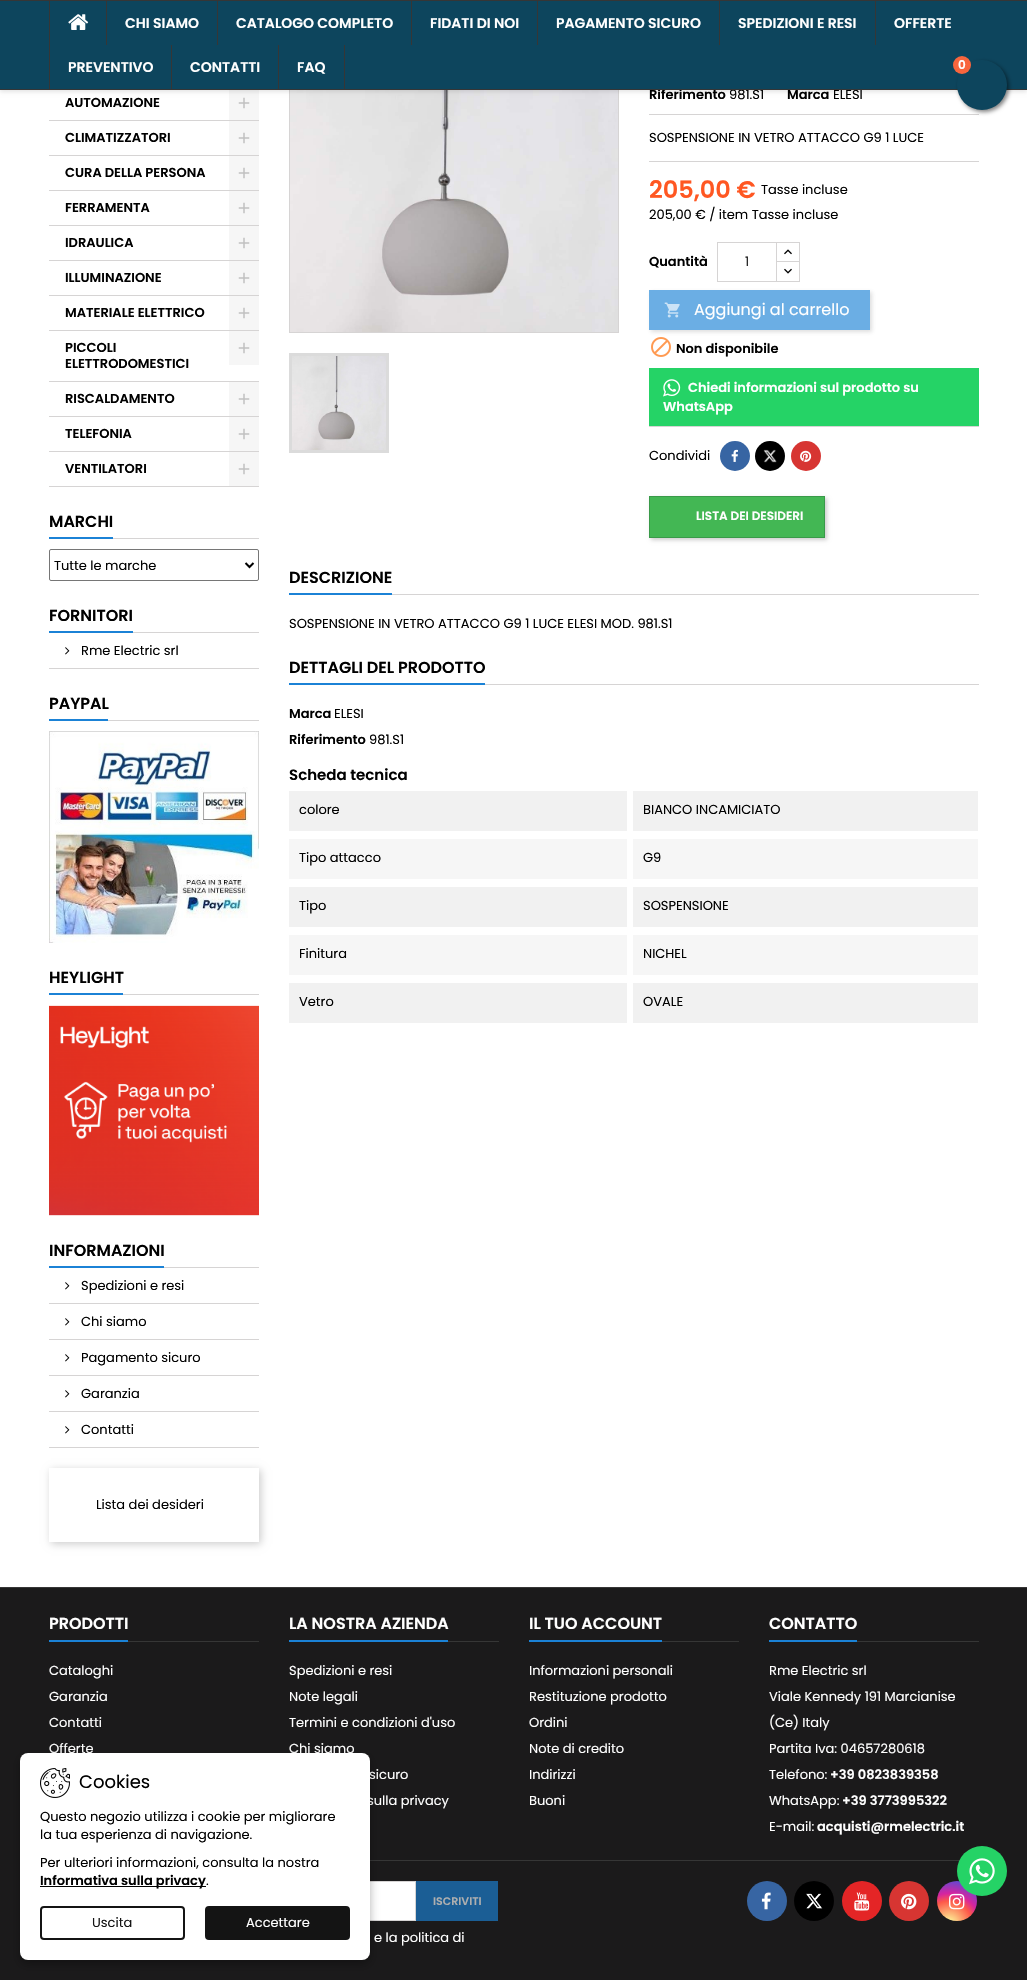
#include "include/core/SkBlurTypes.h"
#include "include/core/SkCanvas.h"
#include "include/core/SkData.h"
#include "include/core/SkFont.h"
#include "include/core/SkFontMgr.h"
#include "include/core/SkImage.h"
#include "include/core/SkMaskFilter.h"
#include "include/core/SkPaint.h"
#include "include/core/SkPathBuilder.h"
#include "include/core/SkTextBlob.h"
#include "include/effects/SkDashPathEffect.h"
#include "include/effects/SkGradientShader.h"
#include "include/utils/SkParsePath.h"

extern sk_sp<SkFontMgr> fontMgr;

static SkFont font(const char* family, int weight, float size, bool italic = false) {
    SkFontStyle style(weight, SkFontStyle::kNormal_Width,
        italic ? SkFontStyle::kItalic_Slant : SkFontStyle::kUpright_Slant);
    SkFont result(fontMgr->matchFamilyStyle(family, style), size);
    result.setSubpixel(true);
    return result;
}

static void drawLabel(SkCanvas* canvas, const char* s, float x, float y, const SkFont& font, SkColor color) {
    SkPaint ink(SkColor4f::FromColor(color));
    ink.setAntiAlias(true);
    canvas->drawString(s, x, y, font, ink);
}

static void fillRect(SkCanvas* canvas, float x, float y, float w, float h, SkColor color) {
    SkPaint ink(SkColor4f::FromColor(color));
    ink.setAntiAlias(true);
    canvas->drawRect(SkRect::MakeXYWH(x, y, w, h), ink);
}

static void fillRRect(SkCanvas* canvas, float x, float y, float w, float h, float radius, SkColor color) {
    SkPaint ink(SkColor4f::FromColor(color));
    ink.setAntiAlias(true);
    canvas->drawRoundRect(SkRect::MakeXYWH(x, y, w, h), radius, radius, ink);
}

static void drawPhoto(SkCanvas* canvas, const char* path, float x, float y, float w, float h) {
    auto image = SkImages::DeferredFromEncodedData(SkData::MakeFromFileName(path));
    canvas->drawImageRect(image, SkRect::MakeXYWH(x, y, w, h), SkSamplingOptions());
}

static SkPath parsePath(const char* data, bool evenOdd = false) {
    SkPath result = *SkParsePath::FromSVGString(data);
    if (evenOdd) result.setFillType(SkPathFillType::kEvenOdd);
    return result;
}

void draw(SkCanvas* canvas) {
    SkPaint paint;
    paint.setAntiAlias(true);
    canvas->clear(0xFFFFFFFF);
    fillRect(canvas, 229, 90, 30, 30, 0xFFF6F6F6);
    drawPhoto(canvas, "assets/img2.png", 238, 97, 12, 12);
    paint.setStroke(true);
    paint.setStrokeWidth(1);
    paint.setColor(0xFFD6D4D4);
    canvas->drawRect(SkRect::MakeXYWH(289.5f, 3.5f, 329, 329), paint);
    drawPhoto(canvas, "assets/img6.png", 290, 90, 328, 242);
    paint.setStroke(false);
    paint.setColor(0x1A000000);
    paint.setMaskFilter(SkMaskFilter::MakeBlur(kNormal_SkBlurStyle, 2));
    canvas->drawRect(SkRect::MakeXYWH(0, 2, 1027, 90), paint);
    paint.setMaskFilter(nullptr);
    SkFont font1 = font("Poppins", 600, 13);
    drawLabel(canvas, "Riferimento", 649, 99, font1, 0xFF000000);
    fillRect(canvas, 0, 1, 1027, 88, 0xFF0D455D);
    fillRect(canvas, 0, 0, 1027, 1, 0xFF363636);
    SkFont font2 = font("Poppins", 400, 13);
    drawLabel(canvas, "981.S1", 729, 99, font2, 0xFF000000);
    drawLabel(canvas, "Marca", 787, 99, font1, 0xFF000000);
    drawLabel(canvas, "ELESI", 833, 99, font2, 0xFF000000);
    fillRect(canvas, 0, 89, 1027, 1, 0xFF363636);
    fillRect(canvas, 49, 1, 1, 88, 0xFF363636);
    drawPhoto(canvas, "assets/img1.png", 68, 14, 21, 16);
    fillRect(canvas, 106, 1, 1, 44, 0xFF363636);
    SkFont font3 = font("Poppins", 600, 14);
    drawLabel(canvas, "CHI SIAMO", 125, 28, font3, 0xFFFFFFFF);
    fillRect(canvas, 217, 1, 1, 44, 0xFF363636);
    drawLabel(canvas, "CATALOGO COMPLETO", 236, 28, font3, 0xFFFFFFFF);
    fillRect(canvas, 411, 1, 1, 44, 0xFF363636);
    drawLabel(canvas, "FIDATI DI NOI", 430, 28, font3, 0xFFFFFFFF);
    fillRect(canvas, 537, 1, 1, 44, 0xFF363636);
    drawLabel(canvas, "PAGAMENTO SICURO", 556, 28, font3, 0xFFFFFFFF);
    fillRect(canvas, 719, 1, 1, 44, 0xFF363636);
    drawLabel(canvas, "SPEDIZIONI E RESI", 738, 28, font3, 0xFFFFFFFF);
    fillRect(canvas, 875, 1, 1, 44, 0xFF363636);
    drawLabel(canvas, "OFFERTE", 894, 28, font3, 0xFFFFFFFF);
    drawLabel(canvas, "PREVENTIVO", 68, 72, font3, 0xFFFFFFFF);
    fillRect(canvas, 171, 45, 1, 44, 0xFF363636);
    drawLabel(canvas, "CONTATTI", 190, 72, font3, 0xFFFFFFFF);
    fillRect(canvas, 344, 45, 1, 44, 0xFF363636);
    fillRect(canvas, 278, 45, 1, 44, 0xFF363636);
    drawLabel(canvas, "FAQ", 297, 72, font3, 0xFFFFFFFF);
    fillRect(canvas, 649, 114, 330, 1, 0xFFD6D4D4);
    paint.setColor(0x80000000);
    paint.setMaskFilter(SkMaskFilter::MakeBlur(kNormal_SkBlurStyle, 2));
    canvas->drawRoundRect(SkRect::MakeXYWH(959, 62, 50, 50), 25, 25, paint);
    paint.setMaskFilter(nullptr);
    paint.setColor(0xFF0D455D);
    canvas->drawCircle(982, 85, 25, paint);
    paint.setColor(0xFFF8653D);
    canvas->drawCircle(962, 65, 9, paint);
    SkFont font4 = font("Poppins", 600, 12);
    drawLabel(canvas, "0", 958, 69, font4, 0xFFFFFFFF);
    fillRect(canvas, 49, 120, 210, 1, 0xFFD6D4D4);
    drawLabel(canvas, "AUTOMAZIONE", 65, 107, font1, 0xFF000000);
    fillRect(canvas, 49, 155, 210, 1, 0xFFD6D4D4);
    drawLabel(canvas, "CLIMATIZZATORI", 65, 142, font1, 0xFF000000);
    fillRect(canvas, 229, 121, 30, 34, 0xFFF6F6F6);
    drawPhoto(canvas, "assets/img2.png", 238, 132, 12, 12);
    fillRect(canvas, 49, 190, 210, 1, 0xFFD6D4D4);
    drawLabel(canvas, "CURA DELLA PERSONA", 65, 177, font1, 0xFF000000);
    fillRect(canvas, 229, 156, 30, 34, 0xFFF6F6F6);
    drawPhoto(canvas, "assets/img2.png", 238, 167, 12, 12);
    fillRect(canvas, 49, 225, 210, 1, 0xFFD6D4D4);
    drawLabel(canvas, "FERRAMENTA", 65, 212, font1, 0xFF000000);
    fillRect(canvas, 229, 191, 30, 34, 0xFFF6F6F6);
    drawPhoto(canvas, "assets/img2.png", 238, 202, 12, 12);
    fillRect(canvas, 49, 260, 210, 1, 0xFFD6D4D4);
    drawLabel(canvas, "IDRAULICA", 65, 247, font1, 0xFF000000);
    fillRect(canvas, 229, 226, 30, 34, 0xFFF6F6F6);
    drawPhoto(canvas, "assets/img2.png", 238, 237, 12, 12);
    fillRect(canvas, 49, 295, 210, 1, 0xFFD6D4D4);
    drawLabel(canvas, "ILLUMINAZIONE", 65, 282, font1, 0xFF000000);
    fillRect(canvas, 229, 261, 30, 34, 0xFFF6F6F6);
    drawPhoto(canvas, "assets/img2.png", 238, 272, 12, 12);
    fillRect(canvas, 49, 330, 210, 1, 0xFFD6D4D4);
    drawLabel(canvas, "MATERIALE ELETTRICO", 65, 317, font1, 0xFF000000);
    fillRect(canvas, 229, 296, 30, 34, 0xFFF6F6F6);
    drawPhoto(canvas, "assets/img2.png", 238, 307, 12, 12);
    fillRect(canvas, 49, 381, 210, 1, 0xFFD6D4D4);
    drawLabel(canvas, "PICCOLI", 65, 352, font1, 0xFF000000);
    drawLabel(canvas, "ELETTRODOMESTICI", 65, 368, font1, 0xFF000000);
    fillRect(canvas, 229, 331, 30, 34, 0xFFF6F6F6);
    drawPhoto(canvas, "assets/img2.png", 238, 342, 12, 12);
    fillRect(canvas, 49, 416, 210, 1, 0xFFD6D4D4);
    drawLabel(canvas, "RISCALDAMENTO", 65, 403, font1, 0xFF000000);
    fillRect(canvas, 229, 382, 30, 34, 0xFFF6F6F6);
    drawPhoto(canvas, "assets/img2.png", 238, 393, 12, 12);
    fillRect(canvas, 49, 451, 210, 1, 0xFFD6D4D4);
    drawLabel(canvas, "TELEFONIA", 65, 438, font1, 0xFF000000);
    fillRect(canvas, 229, 417, 30, 34, 0xFFF6F6F6);
    drawPhoto(canvas, "assets/img2.png", 238, 428, 12, 12);
    fillRect(canvas, 49, 486, 210, 1, 0xFFD6D4D4);
    drawLabel(canvas, "VENTILATORI", 65, 473, font1, 0xFF000000);
    fillRect(canvas, 229, 452, 30, 34, 0xFFF6F6F6);
    drawPhoto(canvas, "assets/img2.png", 238, 463, 12, 12);
    fillRect(canvas, 113, 538, 146, 1, 0xFFD6D4D4);
    fillRect(canvas, 49, 537, 64, 2, 0xFF1B82D6);
    SkFont font5 = font("Poppins", 600, 16);
    drawLabel(canvas, "MARCHI", 49, 527, font5, 0xFF000000);
    paint.setStroke(true);
    paint.setColor(0xFF767676);
    canvas->drawRoundRect(SkRect::MakeXYWH(49.5f, 549.5f, 209, 31), 1.5f, 1.5f, paint);
    paint.setStrokeWidth(2);
    paint.setColor(0xFF000000);
    canvas->drawPath(parsePath("M245.5 563L249.5 567L253.5 563"), paint);
    drawLabel(canvas, "Tutte le marche", 54, 570, font2, 0xFF000000);
    fillRect(canvas, 133, 632, 126, 1, 0xFFD6D4D4);
    fillRect(canvas, 49, 631, 84, 2, 0xFF1B82D6);
    drawLabel(canvas, "FORNITORI", 49, 621, font5, 0xFF000000);
    fillRect(canvas, 49, 668, 210, 1, 0xFFD6D4D4);
    drawPhoto(canvas, "assets/img3.png", 65, 647, 5, 8);
    drawLabel(canvas, "Rme Electric srl", 81, 655, font2, 0xFF000000);
    fillRect(canvas, 108, 720, 151, 1, 0xFFD6D4D4);
    fillRect(canvas, 49, 719, 59, 2, 0xFF1B82D6);
    drawLabel(canvas, "PAYPAL", 49, 709, font5, 0xFF000000);
    drawPhoto(canvas, "assets/img4.png", 49, 731, 210, 212);
    fillRect(canvas, 123, 994, 136, 1, 0xFFD6D4D4);
    fillRect(canvas, 49, 993, 74, 2, 0xFF1B82D6);
    drawLabel(canvas, "HEYLIGHT", 49, 983, font5, 0xFF000000);
    drawPhoto(canvas, "assets/img5.png", 49, 1005, 210, 211);
    fillRect(canvas, 164, 1267, 95, 1, 0xFFD6D4D4);
    fillRect(canvas, 49, 1266, 115, 2, 0xFF1B82D6);
    drawLabel(canvas, "INFORMAZIONI", 49, 1256, font5, 0xFF000000);
    fillRect(canvas, 49, 1303, 210, 1, 0xFFD6D4D4);
    drawPhoto(canvas, "assets/img3.png", 65, 1282, 5, 8);
    drawLabel(canvas, "Spedizioni e resi", 81, 1290, font2, 0xFF000000);
    fillRect(canvas, 49, 1339, 210, 1, 0xFFD6D4D4);
    drawPhoto(canvas, "assets/img3.png", 65, 1318, 5, 8);
    drawLabel(canvas, "Chi siamo", 81, 1326, font2, 0xFF000000);
    fillRect(canvas, 49, 1375, 210, 1, 0xFFD6D4D4);
    drawPhoto(canvas, "assets/img3.png", 65, 1354, 5, 8);
    drawLabel(canvas, "Pagamento sicuro", 81, 1362, font2, 0xFF000000);
    fillRect(canvas, 49, 1411, 210, 1, 0xFFD6D4D4);
    drawPhoto(canvas, "assets/img3.png", 65, 1390, 5, 8);
    drawLabel(canvas, "Garanzia", 81, 1398, font2, 0xFF000000);
    fillRect(canvas, 49, 1447, 210, 1, 0xFFD6D4D4);
    drawPhoto(canvas, "assets/img3.png", 65, 1426, 5, 8);
    drawLabel(canvas, "Contatti", 81, 1434, font2, 0xFF000000);
    canvas->save();
    canvas->clipPath(parsePath("M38 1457H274V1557H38ZM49 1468H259V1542H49Z", true), true);
    paint.setStroke(false);
    paint.setColor(0x33000000);
    paint.setMaskFilter(SkMaskFilter::MakeBlur(kNormal_SkBlurStyle, 4));
    canvas->drawRect(SkRect::MakeXYWH(51, 1470, 210, 74), paint);
    paint.setMaskFilter(nullptr);
    canvas->restore();
    drawLabel(canvas, "Lista dei desideri", 96, 1509, font2, 0xFF000000);
    paint.setStroke(true);
    paint.setStrokeWidth(3);
    paint.setColor(0xFFDBDBDB);
    canvas->drawRect(SkRect::MakeXYWH(290.5f, 354.5f, 97, 97), paint);
    drawPhoto(canvas, "assets/img7.png", 292, 356, 94, 94);
    drawLabel(canvas, "SOSPENSIONE IN VETRO ATTACCO G9 1 LUCE", 649, 142, font2, 0xFF000000);
    fillRect(canvas, 649, 161, 330, 1, 0xFFD6D4D4);
    SkFont font6 = font("Poppins", 600, 24);
    drawLabel(canvas, "205,00 €", 649, 198, font6, 0xFFFF5722);
    drawLabel(canvas, "Tasse incluse", 761, 194, font2, 0xFF000000);
    drawLabel(canvas, "205,00 € / item Tasse incluse", 649, 219, font2, 0xFF000000);
    drawLabel(canvas, "Quantità", 649, 266, font1, 0xFF000000);
    paint.setStrokeWidth(1);
    paint.setColor(0xFFD6D4D4);
    canvas->drawRect(SkRect::MakeXYWH(776.5f, 242.5f, 23, 20), paint);
    fillRect(canvas, 777, 262, 22, 1, 0xFFFFFFFF);
    canvas->drawRect(SkRect::MakeXYWH(776.5f, 261.5f, 23, 20), paint);
    canvas->drawRect(SkRect::MakeXYWH(717.5f, 242.5f, 59, 39), paint);
    drawLabel(canvas, "1", 745, 266, font2, 0xFF232323);
    drawPhoto(canvas, "assets/img8.png", 784, 249, 8, 6);
    drawPhoto(canvas, "assets/img9.png", 784, 268, 8, 6);
    drawPhoto(canvas, "assets/img11.png", 651, 337, 20, 20);
    paint.setStroke(false);
    paint.setColor(0x33595959);
    paint.setMaskFilter(SkMaskFilter::MakeBlur(kNormal_SkBlurStyle, 2));
    canvas->drawRect(SkRect::MakeXYWH(651, 292, 221, 40), paint);
    paint.setMaskFilter(nullptr);
    fillRect(canvas, 649, 290, 221, 40, 0xFF6BAEE4);
    drawPhoto(canvas, "assets/img10.png", 664, 302, 16, 16);
    SkFont font7 = font("Poppins", 400, 16);
    drawLabel(canvas, "Aggiungi al carrello", 694, 315, font7, 0xFFFFFFFF);
    drawLabel(canvas, "Non disponibile", 676, 353, font1, 0xFF000000);
    fillRect(canvas, 649, 368, 330, 58, 0xFF25D366);
    drawPhoto(canvas, "assets/img12.png", 663, 379, 18, 18);
    drawLabel(canvas, "Chiedi informazioni sul prodotto su", 688, 392, font1, 0xFFFFFFFF);
    drawLabel(canvas, "WhatsApp", 663, 411, font1, 0xFFFFFFFF);
    fillRect(canvas, 649, 426, 330, 1, 0xFFD6D4D4);
    drawLabel(canvas, "Condividi", 649, 460, font2, 0xFF000000);
    paint.setColor(0xFF3765A3);
    canvas->drawCircle(735, 456, 15, paint);
    drawPhoto(canvas, "assets/img13.png", 731, 449, 7, 13);
    paint.setColor(0xFF000000);
    canvas->drawCircle(770, 456, 15, paint);
    drawPhoto(canvas, "assets/img14.png", 763, 449, 14, 14);
    paint.setColor(0xFFD73532);
    canvas->drawCircle(806, 456, 15, paint);
    drawPhoto(canvas, "assets/img15.png", 800, 450, 12, 12);
    paint.setColor(0x33000000);
    paint.setMaskFilter(SkMaskFilter::MakeBlur(kNormal_SkBlurStyle, 2));
    canvas->drawRect(SkRect::MakeXYWH(651, 498, 176, 42), paint);
    paint.setMaskFilter(nullptr);
    paint.setColor(0xFF43B754);
    canvas->drawRect(SkRect::MakeXYWH(649.5f, 496.5f, 175, 41), paint);
    paint.setStroke(true);
    paint.setColor(0xFF399A49);
    canvas->drawRect(SkRect::MakeXYWH(649.5f, 496.5f, 175, 41), paint);
    drawLabel(canvas, "LISTA DEI DESIDERI", 696, 520, font4, 0xFFFFFFFF);
    fillRect(canvas, 392, 594, 587, 1, 0xFFD6D4D4);
    fillRect(canvas, 289, 593, 103, 2, 0xFF1B82D6);
    drawLabel(canvas, "DESCRIZIONE", 289, 583, font5, 0xFF000000);
    drawLabel(canvas, "SOSPENSIONE IN VETRO ATTACCO G9 1 LUCE ELESI MOD. 981.S1", 289, 628, font2, 0xFF000000);
    fillRect(canvas, 485, 684, 494, 1, 0xFFD6D4D4);
    fillRect(canvas, 289, 683, 196, 2, 0xFF1B82D6);
    drawLabel(canvas, "DETTAGLI DEL PRODOTTO", 289, 673, font5, 0xFF000000);
    drawLabel(canvas, "Marca", 289, 718, font1, 0xFF000000);
    drawLabel(canvas, "ELESI", 334, 718, font2, 0xFF000000);
    drawLabel(canvas, "Riferimento", 289, 744, font1, 0xFF000000);
    drawLabel(canvas, "981.S1", 369, 744, font2, 0xFF000000);
    SkFont font8 = font("Poppins", 600, 15);
    drawLabel(canvas, "Scheda tecnica", 289, 780, font8, 0xFF000000);
    fillRect(canvas, 289, 791, 338, 40, 0xFFF1F1F1);
    drawLabel(canvas, "colore", 299, 814, font2, 0xFF000000);
    fillRect(canvas, 633, 791, 345, 40, 0xFFF1F1F1);
    drawLabel(canvas, "BIANCO INCAMICIATO", 643, 814, font2, 0xFF000000);
    fillRect(canvas, 289, 839, 338, 40, 0xFFF6F6F6);
    drawLabel(canvas, "Tipo attacco", 299, 862, font2, 0xFF000000);
    fillRect(canvas, 633, 839, 345, 40, 0xFFF6F6F6);
    drawLabel(canvas, "G9", 643, 862, font2, 0xFF000000);
    fillRect(canvas, 289, 887, 338, 40, 0xFFF1F1F1);
    drawLabel(canvas, "Tipo", 299, 910, font2, 0xFF000000);
    fillRect(canvas, 633, 887, 345, 40, 0xFFF1F1F1);
    drawLabel(canvas, "SOSPENSIONE", 643, 910, font2, 0xFF000000);
    fillRect(canvas, 289, 935, 338, 40, 0xFFF6F6F6);
    drawLabel(canvas, "Finitura", 299, 958, font2, 0xFF000000);
    fillRect(canvas, 633, 935, 345, 40, 0xFFF6F6F6);
    drawLabel(canvas, "NICHEL", 643, 958, font2, 0xFF000000);
    fillRect(canvas, 289, 983, 338, 40, 0xFFF1F1F1);
    drawLabel(canvas, "Vetro", 299, 1006, font2, 0xFF000000);
    fillRect(canvas, 633, 983, 345, 40, 0xFFF1F1F1);
    drawLabel(canvas, "OVALE", 643, 1006, font2, 0xFF000000);
    fillRect(canvas, 0, 1588, 1027, 392, 0xFF1B1A1B);
    fillRect(canvas, 0, 1587, 1027, 1, 0xFF363636);
    fillRect(canvas, 128, 1641, 131, 1, 0xFF363636);
    fillRect(canvas, 49, 1640, 79, 2, 0xFF1B82D6);
    drawLabel(canvas, "PRODOTTI", 49, 1629, font5, 0xFFFFFFFF);
    drawLabel(canvas, "Cataloghi", 49, 1675, font2, 0xFFFFFFFF);
    drawLabel(canvas, "Garanzia", 49, 1701, font2, 0xFFFFFFFF);
    drawLabel(canvas, "Contatti", 49, 1727, font2, 0xFFFFFFFF);
    drawLabel(canvas, "Offerte", 49, 1753, font2, 0xFFFFFFFF);
    fillRect(canvas, 448, 1641, 51, 1, 0xFF363636);
    fillRect(canvas, 289, 1640, 159, 2, 0xFF1B82D6);
    drawLabel(canvas, "LA NOSTRA AZIENDA", 289, 1629, font5, 0xFFFFFFFF);
    drawLabel(canvas, "Spedizioni e resi", 289, 1675, font2, 0xFFFFFFFF);
    drawLabel(canvas, "Note legali", 289, 1701, font2, 0xFFFFFFFF);
    drawLabel(canvas, "Termini e condizioni d'uso", 289, 1727, font2, 0xFFFFFFFF);
    drawLabel(canvas, "Chi siamo", 289, 1753, font2, 0xFFFFFFFF);
    drawLabel(canvas, "sicuro", 369, 1779, font2, 0xFFFFFFFF);
    drawLabel(canvas, "sulla privacy", 367, 1805, font2, 0xFFFFFFFF);
    fillRect(canvas, 662, 1641, 77, 1, 0xFF363636);
    fillRect(canvas, 529, 1640, 133, 2, 0xFF1B82D6);
    drawLabel(canvas, "IL TUO ACCOUNT", 529, 1629, font5, 0xFFFFFFFF);
    drawLabel(canvas, "Informazioni personali", 529, 1675, font2, 0xFFFFFFFF);
    drawLabel(canvas, "Restituzione prodotto", 529, 1701, font2, 0xFFFFFFFF);
    drawLabel(canvas, "Ordini", 529, 1727, font2, 0xFFFFFFFF);
    drawLabel(canvas, "Note di credito", 529, 1753, font2, 0xFFFFFFFF);
    drawLabel(canvas, "Indirizzi", 529, 1779, font2, 0xFFFFFFFF);
    drawLabel(canvas, "Buoni", 529, 1805, font2, 0xFFFFFFFF);
    fillRect(canvas, 857, 1641, 122, 1, 0xFF363636);
    fillRect(canvas, 769, 1640, 88, 2, 0xFF1B82D6);
    drawLabel(canvas, "CONTATTO", 769, 1629, font5, 0xFFFFFFFF);
    drawLabel(canvas, "Rme Electric srl", 769, 1675, font2, 0xFFFFFFFF);
    drawLabel(canvas, "Viale Kennedy 191 Marcianise", 769, 1701, font2, 0xFFFFFFFF);
    drawLabel(canvas, "(Ce) Italy", 769, 1727, font2, 0xFFFFFFFF);
    drawLabel(canvas, "Partita Iva: 04657280618", 769, 1753, font2, 0xFFFFFFFF);
    drawLabel(canvas, "Telefono:", 769, 1779, font2, 0xFFFFFFFF);
    drawLabel(canvas, "+39 0823839358", 830, 1779, font1, 0xFFFFFFFF);
    drawLabel(canvas, "WhatsApp:", 769, 1805, font2, 0xFFFFFFFF);
    drawLabel(canvas, "+39 3773995322", 842, 1805, font1, 0xFFFFFFFF);
    drawLabel(canvas, "E-mail:", 769, 1831, font2, 0xFFFFFFFF);
    drawLabel(canvas, "acquisti@rmelectric.it", 817, 1831, font1, 0xFFFFFFFF);
    fillRect(canvas, 370, 1860, 590, 1, 0xFF363636);
    fillRect(canvas, 370, 1882, 45, 38, 0xFFFFFFFF);
    paint.setColor(0xFFD6D4D4);
    canvas->drawRect(SkRect::MakeXYWH(158.5f, 1881.5f, 257, 39), paint);
    paint.setStroke(false);
    paint.setColor(0x4D000000);
    paint.setMaskFilter(SkMaskFilter::MakeBlur(kNormal_SkBlurStyle, 5));
    canvas->drawRoundRect(SkRect::MakeXYWH(20, 1757, 350, 207), 8, 8, paint);
    paint.setMaskFilter(nullptr);
    fillRRect(canvas, 20, 1753, 350, 207, 8, 0xFFFFFFFF);
    drawPhoto(canvas, "assets/img16.png", 40, 1768, 30, 30);
    SkFont font9 = font("Poppins", 400, 18);
    drawLabel(canvas, "Cookies", 79, 1788, font9, 0xFF000000);
    drawLabel(canvas, "Questo negozio utilizza i cookie per migliorare", 40, 1821, font2, 0xFF000000);
    drawLabel(canvas, "la tua esperienza di navigazione.", 40, 1839, font2, 0xFF000000);
    drawLabel(canvas, "Per ulteriori informazioni, consulta la nostra", 40, 1867, font2, 0xFF000000);
    fillRect(canvas, 40, 1886, 166, 1, 0xFF000000);
    drawLabel(canvas, "Informativa sulla privacy", 40, 1885, font1, 0xFF000000);
    drawLabel(canvas, ".", 206, 1885, font2, 0xFF000000);
    paint.setStroke(true);
    paint.setStrokeWidth(2);
    paint.setColor(0xFF141414);
    canvas->drawRoundRect(SkRect::MakeXYWH(41, 1907, 143, 32), 3, 3, paint);
    drawLabel(canvas, "Uscita", 92, 1927, font2, 0xFF141414);
    paint.setStroke(false);
    canvas->drawRoundRect(SkRect::MakeXYWH(206, 1907, 143, 32), 3, 3, paint);
    paint.setStroke(true);
    canvas->drawRoundRect(SkRect::MakeXYWH(206, 1907, 143, 32), 3, 3, paint);
    drawLabel(canvas, "Accettare", 246, 1927, font2, 0xFFFFFFFF);
    paint.setStroke(false);
    {
        const SkColor colors[] = {0xFFFDF497, 0xFFFDF497, 0xFFFD5949, 0xFFD6249F, 0xFF285AEB};
        const float stops[] = {0, 0.05f, 0.45f, 0.6f, 1};
        paint.setShader(SkGradientShader::MakeRadial({949, 1924}, 51, colors, stops, 5, SkTileMode::kClamp));
        paint.setAlpha(255);
    }
    canvas->drawCircle(957, 1901, 20, paint);
    drawPhoto(canvas, "assets/img22.png", 949, 1893, 16, 17);
    paint.setShader(nullptr);
    paint.setColor(0xFF25D366);
    canvas->drawCircle(982, 1871, 25, paint);
    drawPhoto(canvas, "assets/img17.png", 969, 1858, 26, 27);
    fillRect(canvas, 416, 1881, 82, 40, 0xFF1B5E95);
    SkFont font10 = font("Poppins", 600, 11);
    drawLabel(canvas, "ISCRIVITI", 433, 1905, font10, 0xFFAFAFAF);
    drawLabel(canvas, "e la politica di", 374, 1942, font2, 0xFFFFFFFF);
    paint.setColor(0xFF3765A3);
    canvas->drawCircle(767, 1901, 20, paint);
    drawPhoto(canvas, "assets/img18.png", 761, 1892, 10, 18);
    paint.setColor(0xFF000000);
    canvas->drawCircle(814, 1901, 20, paint);
    drawPhoto(canvas, "assets/img19.png", 806, 1893, 17, 16);
    paint.setColor(0xFFE42526);
    canvas->drawCircle(862, 1901, 20, paint);
    drawPhoto(canvas, "assets/img20.png", 854, 1892, 16, 19);
    paint.setColor(0xFFD73532);
    canvas->drawCircle(909, 1901, 20, paint);
    drawPhoto(canvas, "assets/img21.png", 901, 1893, 16, 17);
}
